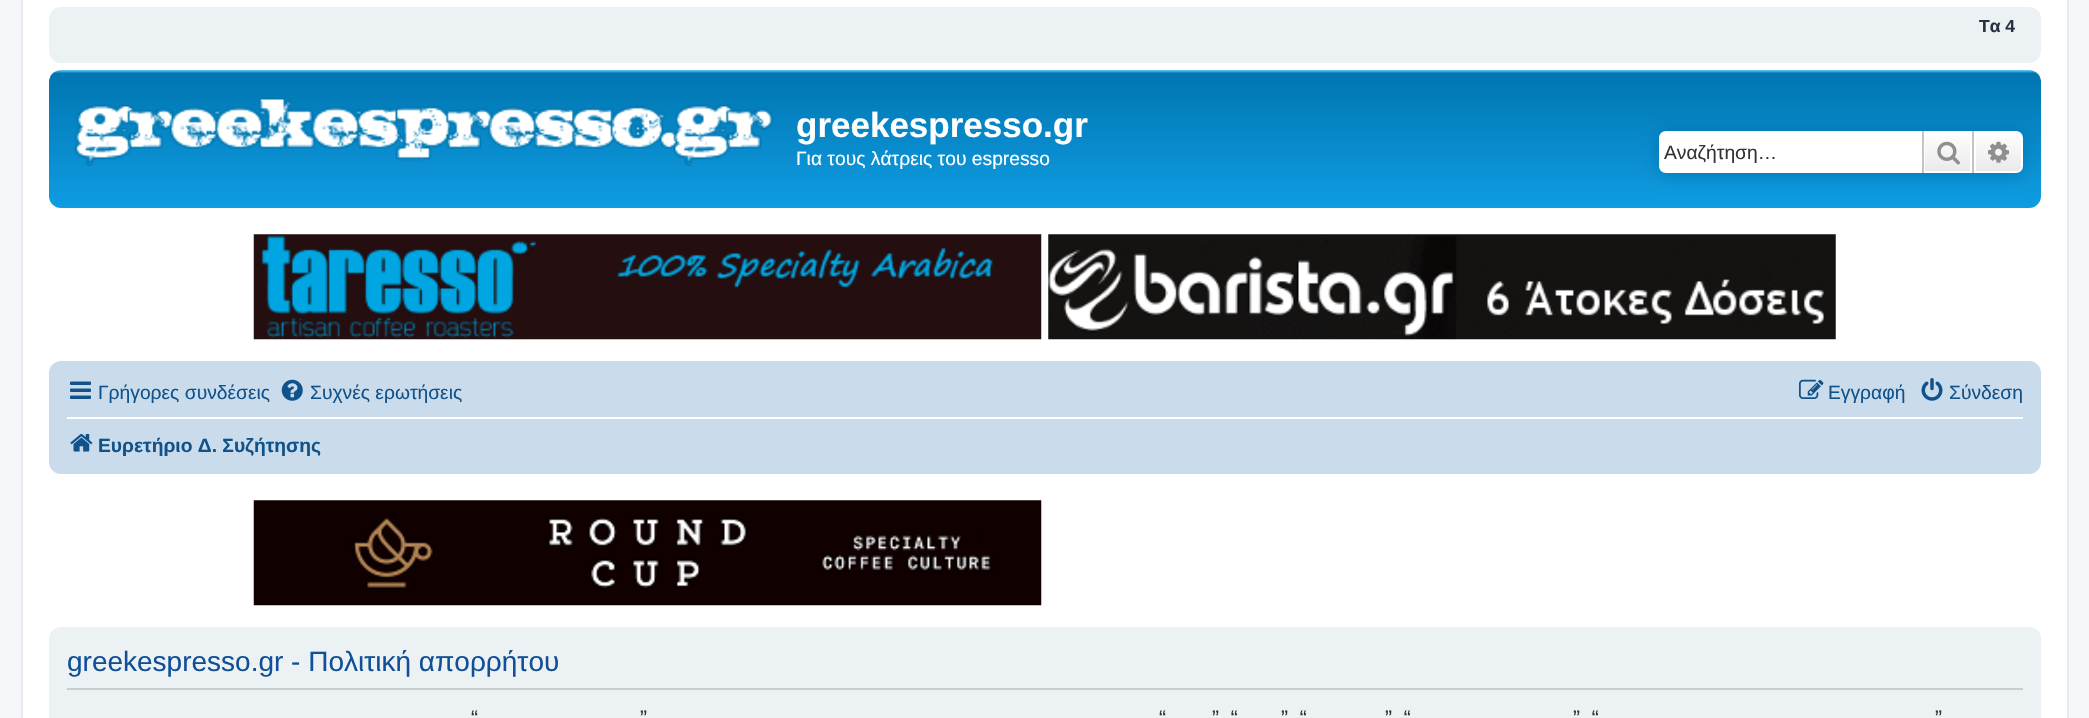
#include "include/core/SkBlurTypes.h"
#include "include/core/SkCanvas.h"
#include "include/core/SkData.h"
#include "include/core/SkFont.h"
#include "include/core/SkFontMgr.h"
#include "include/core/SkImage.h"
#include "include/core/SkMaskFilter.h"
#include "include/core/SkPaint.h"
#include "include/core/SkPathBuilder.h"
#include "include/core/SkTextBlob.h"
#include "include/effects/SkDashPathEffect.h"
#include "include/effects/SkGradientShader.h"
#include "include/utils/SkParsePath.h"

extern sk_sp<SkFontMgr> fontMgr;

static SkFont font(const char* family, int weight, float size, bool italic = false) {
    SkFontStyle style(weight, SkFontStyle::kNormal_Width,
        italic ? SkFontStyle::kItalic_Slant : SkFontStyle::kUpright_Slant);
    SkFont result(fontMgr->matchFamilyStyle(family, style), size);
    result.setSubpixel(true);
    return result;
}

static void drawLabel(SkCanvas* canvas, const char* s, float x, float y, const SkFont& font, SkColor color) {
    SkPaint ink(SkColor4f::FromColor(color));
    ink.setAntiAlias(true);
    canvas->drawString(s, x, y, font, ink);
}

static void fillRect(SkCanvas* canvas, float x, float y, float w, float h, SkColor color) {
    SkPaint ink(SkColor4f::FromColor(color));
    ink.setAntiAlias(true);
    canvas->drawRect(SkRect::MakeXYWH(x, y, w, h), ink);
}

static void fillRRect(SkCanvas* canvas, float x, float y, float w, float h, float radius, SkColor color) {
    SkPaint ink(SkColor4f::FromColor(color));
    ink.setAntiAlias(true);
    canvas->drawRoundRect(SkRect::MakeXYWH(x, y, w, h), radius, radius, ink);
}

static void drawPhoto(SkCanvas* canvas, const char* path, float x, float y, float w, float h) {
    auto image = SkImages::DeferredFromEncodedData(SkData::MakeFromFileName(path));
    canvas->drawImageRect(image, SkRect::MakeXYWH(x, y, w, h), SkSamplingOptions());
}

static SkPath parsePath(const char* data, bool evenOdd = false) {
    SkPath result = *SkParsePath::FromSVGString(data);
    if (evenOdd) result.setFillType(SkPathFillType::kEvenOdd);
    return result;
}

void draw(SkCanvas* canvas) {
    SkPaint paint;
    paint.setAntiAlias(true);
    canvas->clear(0xFFF5F7FA);
    paint.setColor(0xFFFFFFFF);
    canvas->drawRect(SkRect::MakeXYWH(22, -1, 2046, 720), paint);
    paint.setStroke(true);
    paint.setStrokeWidth(2);
    paint.setColor(0xFFE6E9ED);
    canvas->drawRect(SkRect::MakeXYWH(22, -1, 2046, 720), paint);
    fillRRect(canvas, 49, 7, 1992, 56, 12, 0xFFECF1F3);
    SkFont font1 = font("Liberation Sans", 700, 17.5f);
    drawLabel(canvas, "Τα 4", 1979, 32, font1, 0xFF28313F);
    paint.setStroke(false);
    {
        const SkColor colors[] = {0xFF6ACEFF, 0xFF0076B1, 0xFF12A3EB};
        const float stops[] = {0, 0.02f, 1};
        const SkPoint ends[] = {{1045, 70}, {1045, 231}};
        paint.setShader(SkGradientShader::MakeLinear(ends, colors, stops, 3, SkTileMode::kClamp));
        paint.setAlpha(255);
    }
    canvas->drawRoundRect(SkRect::MakeXYWH(49, 70, 1992, 138), 12, 12, paint);
    drawPhoto(canvas, "assets/img1.png", 75, 96, 699, 70);
    SkFont font2 = font("Liberation Sans", 700, 35);
    drawLabel(canvas, "greekespresso.gr", 796, 137, font2, 0xFFFFFFFF);
    SkFont font3 = font("Liberation Sans", 400, 19.25f);
    drawLabel(canvas, "Για τους λάτρεις του espresso", 796, 165, font3, 0xFFFFFFFF);
    paint.setShader(nullptr);
    paint.setColor(0xFF0075B0);
    paint.setMaskFilter(SkMaskFilter::MakeBlur(kNormal_SkBlurStyle, 9));
    canvas->drawRoundRect(SkRect::MakeXYWH(1659, 131, 364, 42), 7, 7, paint);
    paint.setMaskFilter(nullptr);
    paint.setColor(0xFFFFFFFF);
    canvas->drawPath(parsePath("M1666 131H1922V173H1666C1662 173 1659 170 1659 166V138C1659 134 1662 131 1666 131Z"), paint);
    drawLabel(canvas, "Αναζήτηση…", 1664, 159, font3, 0xFF333333);
    {
        const SkColor colors[] = {0xFFFFFFFF, 0xFFE9E9E9};
        const float stops[] = {0, 1};
        const SkPoint ends[] = {{1948, 131}, {1948, 173}};
        paint.setShader(SkGradientShader::MakeLinear(ends, colors, stops, 2, SkTileMode::kClamp));
        paint.setAlpha(255);
    }
    canvas->drawRect(SkRect::MakeXYWH(1925, 133, 45, 38), paint);
    paint.setStroke(true);
    paint.setShader(nullptr);
    paint.setColor(0xFFFFFFFF);
    canvas->drawRect(SkRect::MakeXYWH(1924, 132, 47, 40), paint);
    fillRect(canvas, 1972, 131, 2, 42, 0xFFC7C3BF);
    fillRect(canvas, 1922, 131, 2, 42, 0xFFC7C3BF);
    drawPhoto(canvas, "assets/img2.png", 1937, 141, 23, 24);
    paint.setStroke(false);
    {
        const SkColor colors[] = {0xFFFFFFFF, 0xFFE9E9E9};
        const float stops[] = {0, 1};
        const SkPoint ends[] = {{1999, 131}, {1999, 173}};
        paint.setShader(SkGradientShader::MakeLinear(ends, colors, stops, 2, SkTileMode::kClamp));
        paint.setAlpha(255);
    }
    canvas->drawPath(parsePath("M1975 132H2016C2019.5 132 2022 134.5 2022 138V166C2022 169.5 2019.5 172 2016 172H1975Z"), paint);
    paint.setStroke(true);
    paint.setShader(nullptr);
    paint.setColor(0xFFFFFFFF);
    canvas->drawPath(parsePath("M1975 132H2016C2019.5 132 2022 134.5 2022 138V166C2022 169.5 2019.5 172 2016 172H1975Z"), paint);
    drawPhoto(canvas, "assets/img3.png", 1988, 141, 21, 22);
    drawPhoto(canvas, "assets/img4.png", 253, 234, 789, 106);
    drawPhoto(canvas, "assets/img5.png", 1048, 234, 788, 106);
    fillRRect(canvas, 49, 361, 1992, 113, 12, 0xFFCADCEB);
    drawPhoto(canvas, "assets/img6.png", 70, 381, 21, 18);
    drawLabel(canvas, "Γρήγορες συνδέσεις", 98, 399, font3, 0xFF105289);
    drawPhoto(canvas, "assets/img7.png", 281, 379, 22, 22);
    drawLabel(canvas, "Συχνές ερωτήσεις", 310, 399, font3, 0xFF105289);
    drawPhoto(canvas, "assets/img8.png", 1799, 379, 25, 20);
    drawLabel(canvas, "Εγγραφή", 1828, 399, font3, 0xFF105289);
    drawPhoto(canvas, "assets/img9.png", 1921, 378, 22, 23);
    drawLabel(canvas, "Σύνδεση", 1949, 399, font3, 0xFF105289);
    fillRect(canvas, 67, 417, 1956, 2, 0xFFFFFFFF);
    drawPhoto(canvas, "assets/img10.png", 70, 434, 23, 18);
    SkFont font4 = font("Liberation Sans", 700, 19.25f);
    drawLabel(canvas, "Ευρετήριο Δ. Συζήτησης", 98, 452, font4, 0xFF105289);
    drawPhoto(canvas, "assets/img11.png", 253, 500, 789, 106);
    fillRRect(canvas, 49, 627, 1992, 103, 12, 0xFFECF1F3);
    fillRect(canvas, 67, 688, 1956, 2, 0xFFCCCCCC);
    SkFont font5 = font("Liberation Sans", 400, 28);
    drawLabel(canvas, "greekespresso.gr - Πολιτική απορρήτου", 67, 671, font5, 0xFF115098);
    SkFont font6 = font("Liberation Sans", 400, 21);
    drawLabel(canvas, "“", 471, 725, font6, 0xFF333333);
    drawLabel(canvas, "”", 640, 725, font6, 0xFF333333);
    drawLabel(canvas, "“", 1159, 725, font6, 0xFF333333);
    drawLabel(canvas, "”, “", 1212, 725, font6, 0xFF333333);
    drawLabel(canvas, "”, “", 1281, 725, font6, 0xFF333333);
    drawLabel(canvas, "”, “", 1385, 725, font6, 0xFF333333);
    drawLabel(canvas, "”, “", 1573, 725, font6, 0xFF333333);
    drawLabel(canvas, "”", 1935, 725, font6, 0xFF333333);
}
